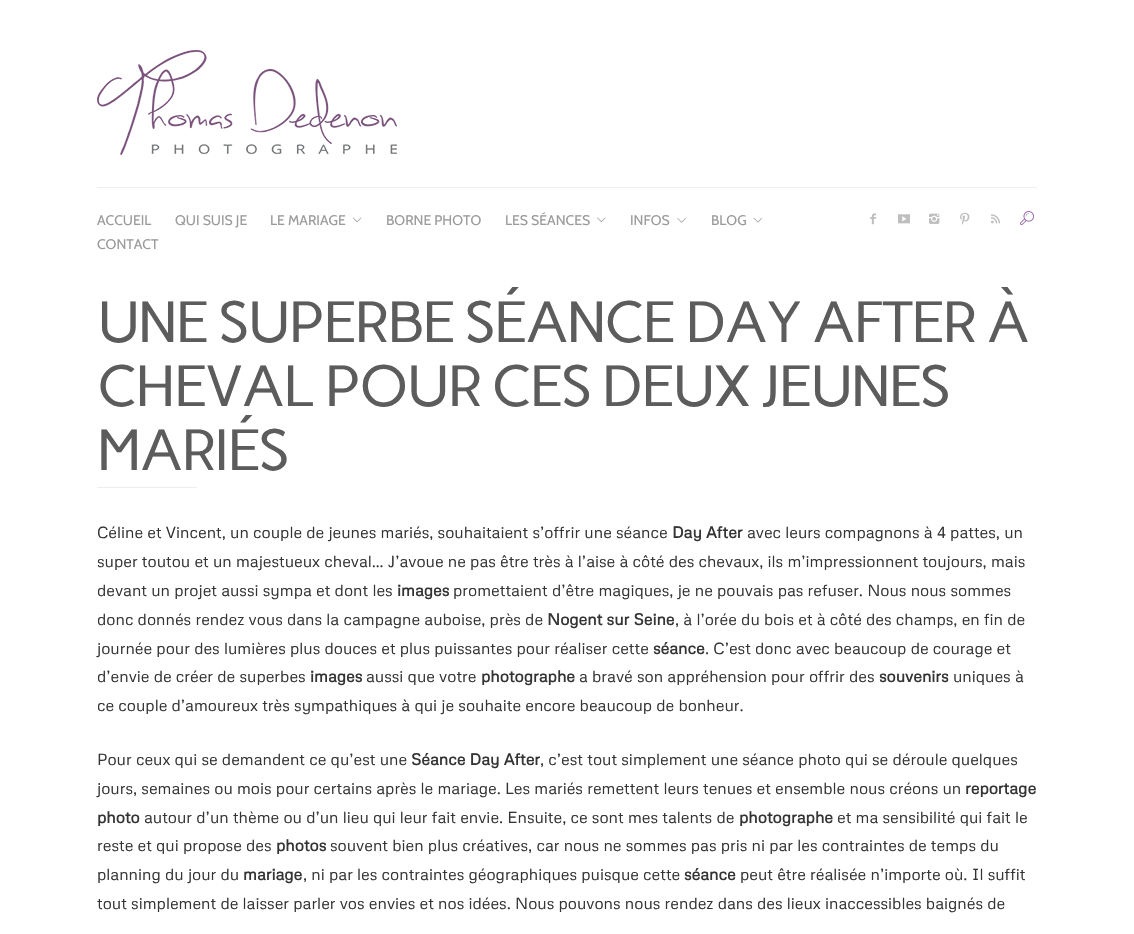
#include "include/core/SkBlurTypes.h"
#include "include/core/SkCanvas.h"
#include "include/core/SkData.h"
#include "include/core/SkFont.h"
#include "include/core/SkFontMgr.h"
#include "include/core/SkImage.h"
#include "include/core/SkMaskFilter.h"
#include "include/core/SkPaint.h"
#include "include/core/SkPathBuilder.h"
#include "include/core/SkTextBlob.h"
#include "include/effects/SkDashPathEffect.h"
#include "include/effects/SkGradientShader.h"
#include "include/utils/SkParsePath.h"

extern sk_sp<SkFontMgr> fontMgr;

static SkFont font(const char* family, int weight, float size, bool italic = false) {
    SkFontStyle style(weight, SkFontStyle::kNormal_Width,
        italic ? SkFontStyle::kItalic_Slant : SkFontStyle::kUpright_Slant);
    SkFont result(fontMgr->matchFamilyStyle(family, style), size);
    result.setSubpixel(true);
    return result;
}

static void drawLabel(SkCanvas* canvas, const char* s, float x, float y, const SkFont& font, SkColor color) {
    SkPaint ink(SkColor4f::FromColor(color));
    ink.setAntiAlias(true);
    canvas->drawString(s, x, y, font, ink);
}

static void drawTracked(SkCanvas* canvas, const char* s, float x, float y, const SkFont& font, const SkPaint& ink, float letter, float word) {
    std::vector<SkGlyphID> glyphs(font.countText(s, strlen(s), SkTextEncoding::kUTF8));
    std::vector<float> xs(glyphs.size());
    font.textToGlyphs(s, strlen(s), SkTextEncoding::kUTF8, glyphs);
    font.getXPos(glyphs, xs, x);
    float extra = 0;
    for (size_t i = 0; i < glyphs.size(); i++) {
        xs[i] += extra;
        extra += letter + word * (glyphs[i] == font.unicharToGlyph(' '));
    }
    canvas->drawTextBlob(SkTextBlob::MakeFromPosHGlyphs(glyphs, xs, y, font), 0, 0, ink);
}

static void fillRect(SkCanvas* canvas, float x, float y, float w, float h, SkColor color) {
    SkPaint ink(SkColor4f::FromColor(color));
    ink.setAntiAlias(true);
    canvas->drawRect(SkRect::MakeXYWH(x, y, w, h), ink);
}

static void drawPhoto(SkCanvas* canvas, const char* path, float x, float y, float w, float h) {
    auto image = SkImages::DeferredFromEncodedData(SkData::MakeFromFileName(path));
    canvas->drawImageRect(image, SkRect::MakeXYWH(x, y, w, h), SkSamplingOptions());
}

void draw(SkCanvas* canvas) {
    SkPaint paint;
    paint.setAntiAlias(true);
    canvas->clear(0xFFFFFFFF);
    drawPhoto(canvas, "assets/img1.png", 97, 50, 300, 105);
    fillRect(canvas, 97, 187, 940, 1, 0xFFEEEEEE);
    SkFont font1 = font("Cabin", 400, 14);
    drawLabel(canvas, "ACCUEIL", 97, 225, font1, 0xFF9B9B9B);
    drawLabel(canvas, "QUI SUIS JE", 175, 225, font1, 0xFF9B9B9B);
    drawLabel(canvas, "LE MARIAGE", 270, 225, font1, 0xFF9B9B9B);
    drawPhoto(canvas, "assets/img2.png", 352, 217, 10, 6);
    drawLabel(canvas, "BORNE PHOTO", 386, 225, font1, 0xFF9B9B9B);
    drawLabel(canvas, "LES SÉANCES", 505, 225, font1, 0xFF9B9B9B);
    drawPhoto(canvas, "assets/img3.png", 597, 217, 9, 5);
    drawLabel(canvas, "INFOS", 630, 225, font1, 0xFF9B9B9B);
    drawPhoto(canvas, "assets/img4.png", 677, 218, 9, 5);
    drawLabel(canvas, "BLOG", 711, 225, font1, 0xFF9B9B9B);
    drawPhoto(canvas, "assets/img5.png", 753, 217, 9, 6);
    drawLabel(canvas, "CONTACT", 97, 249, font1, 0xFF9B9B9B);
    drawPhoto(canvas, "assets/img6.png", 870, 213, 6, 12);
    drawPhoto(canvas, "assets/img7.png", 898, 214, 12, 10);
    drawPhoto(canvas, "assets/img8.png", 929, 213, 11, 11);
    drawPhoto(canvas, "assets/img9.png", 960, 212, 10, 13);
    drawPhoto(canvas, "assets/img10.png", 991, 214, 9, 10);
    drawPhoto(canvas, "assets/img11.png", 1020, 211, 14, 15);
    SkFont font2 = font("Carme", 400, 58);
    paint.setColor(0xFF5C5C5C);
    drawTracked(canvas, "UNE SUPERBE SÉANCE DAY AFTER À", 97, 342, font2, paint, -2, 0);
    drawTracked(canvas, "CHEVAL POUR CES DEUX JEUNES", 97, 406, font2, paint, -2, 0);
    drawTracked(canvas, "MARIÉS", 97, 470, font2, paint, -2, 0);
    fillRect(canvas, 97, 487, 100, 1, 0xFFEDEDED);
    SkFont font3 = font("Metrophobic", 400, 16);
    drawLabel(canvas, "Céline et Vincent, un couple de jeunes mariés, souhaitaient s’offrir une séance", 97, 538, font3, 0xFF343434);
    SkFont font4 = font("Metrophobic", 700, 16);
    drawLabel(canvas, "Day After", 672, 538, font4, 0xFF343434);
    drawLabel(canvas, "avec leurs compagnons à 4 pattes, un", 747, 538, font3, 0xFF343434);
    drawLabel(canvas, "super toutou et un majestueux cheval… J’avoue ne pas être très à l’aise à côté des chevaux, ils m’impressionnent toujours, mais", 97, 567, font3, 0xFF343434);
    drawLabel(canvas, "devant un projet aussi sympa et dont les", 97, 596, font3, 0xFF343434);
    drawLabel(canvas, "images", 397, 596, font4, 0xFF343434);
    drawLabel(canvas, "promettaient d’être magiques, je ne pouvais pas refuser. Nous nous sommes", 453, 596, font3, 0xFF343434);
    drawLabel(canvas, "donc donnés rendez vous dans la campagne auboise, près de", 97, 625, font3, 0xFF343434);
    drawLabel(canvas, "Nogent sur Seine", 547, 625, font4, 0xFF343434);
    drawLabel(canvas, ", à l’orée du bois et à côté des champs, en fin de", 675, 625, font3, 0xFF343434);
    drawLabel(canvas, "journée pour des lumières plus douces et plus puissantes pour réaliser cette", 97, 654, font3, 0xFF343434);
    drawLabel(canvas, "séance", 653, 654, font4, 0xFF343434);
    drawLabel(canvas, ". C’est donc avec beaucoup de courage et", 705, 654, font3, 0xFF343434);
    drawLabel(canvas, "d’envie de créer de superbes", 97, 682, font3, 0xFF343434);
    drawLabel(canvas, "images", 310, 682, font4, 0xFF343434);
    drawLabel(canvas, "aussi que votre", 366, 682, font3, 0xFF343434);
    drawLabel(canvas, "photographe", 481, 682, font4, 0xFF343434);
    drawLabel(canvas, "a bravé son appréhension pour offrir des", 579, 682, font3, 0xFF343434);
    drawLabel(canvas, "souvenirs", 879, 682, font4, 0xFF343434);
    drawLabel(canvas, "uniques à", 953, 682, font3, 0xFF343434);
    drawLabel(canvas, "ce couple d’amoureux très sympathiques à qui je souhaite encore beaucoup de bonheur.", 97, 711, font3, 0xFF343434);
    drawLabel(canvas, "Pour ceux qui se demandent ce qu’est une", 97, 765, font3, 0xFF343434);
    drawLabel(canvas, "Séance Day After", 411, 765, font4, 0xFF343434);
    drawLabel(canvas, ", c’est tout simplement une séance photo qui se déroule quelques", 540, 765, font3, 0xFF343434);
    drawLabel(canvas, "jours, semaines ou mois pour certains après le mariage. Les mariés remettent leurs tenues et ensemble nous créons un", 97, 794, font3, 0xFF343434);
    drawLabel(canvas, "reportage", 965, 794, font4, 0xFF343434);
    drawLabel(canvas, "photo", 97, 823, font4, 0xFF343434);
    drawLabel(canvas, "autour d’un thème ou d’un lieu qui leur fait envie. Ensuite, ce sont mes talents de", 144, 823, font3, 0xFF343434);
    drawLabel(canvas, "photographe", 739, 823, font4, 0xFF343434);
    drawLabel(canvas, "et ma sensibilité qui fait le", 837, 823, font3, 0xFF343434);
    drawLabel(canvas, "reste et qui propose des", 97, 851, font3, 0xFF343434);
    drawLabel(canvas, "photos", 276, 851, font4, 0xFF343434);
    drawLabel(canvas, "souvent bien plus créatives, car nous ne sommes pas pris ni par les contraintes de temps du", 330, 851, font3, 0xFF343434);
    drawLabel(canvas, "planning du jour du", 97, 880, font3, 0xFF343434);
    drawLabel(canvas, "mariage", 243, 880, font4, 0xFF343434);
    drawLabel(canvas, ", ni par les contraintes géographiques puisque cette", 303, 880, font3, 0xFF343434);
    drawLabel(canvas, "séance", 684, 880, font4, 0xFF343434);
    drawLabel(canvas, "peut être réalisée n’importe où. Il suffit", 740, 880, font3, 0xFF343434);
    drawLabel(canvas, "tout simplement de laisser parler vos envies et nos idées. Nous pouvons nous rendez dans des lieux inaccessibles baignés de", 97, 909, font3, 0xFF343434);
}
